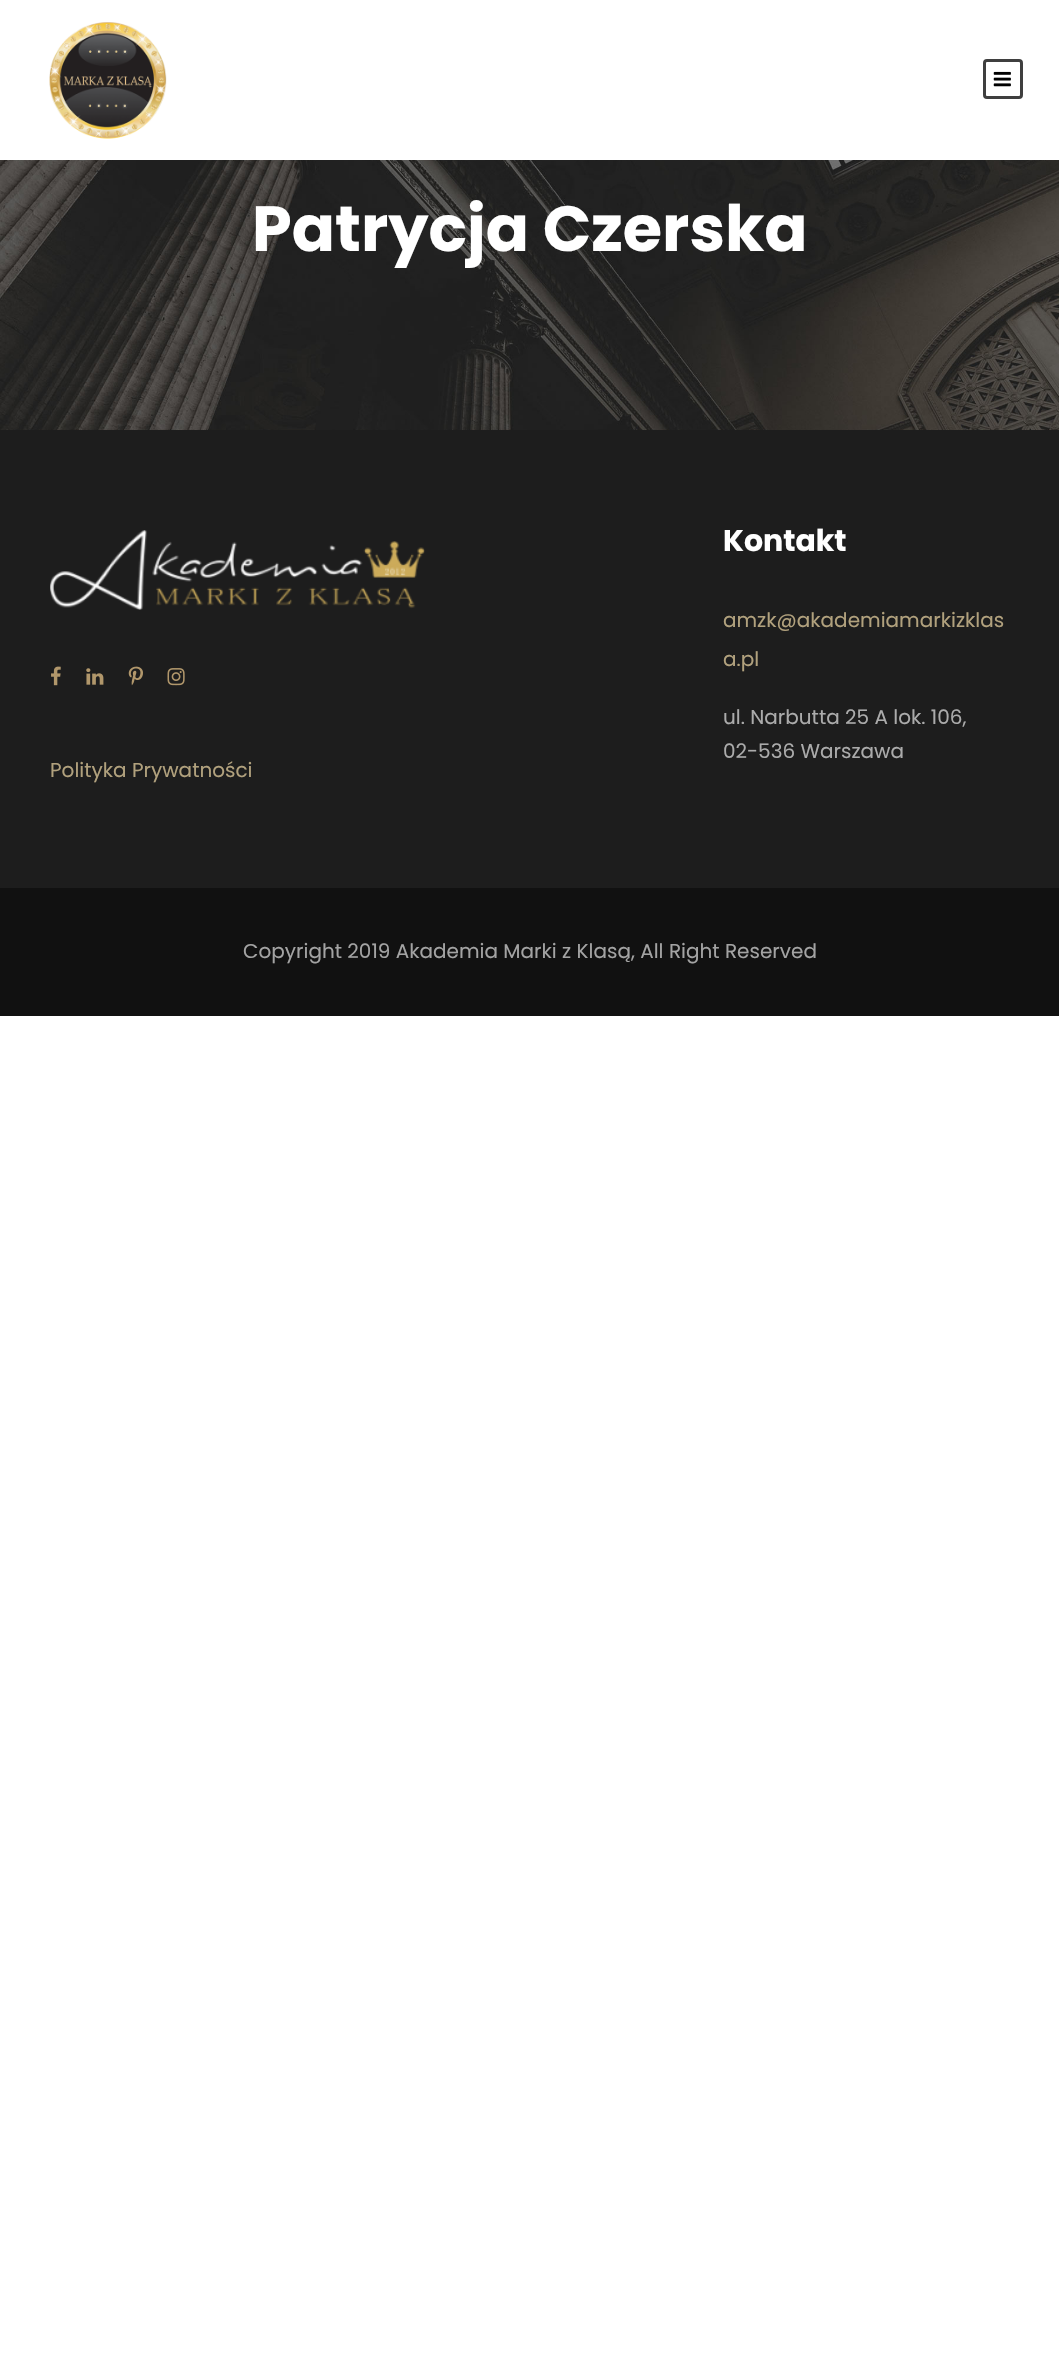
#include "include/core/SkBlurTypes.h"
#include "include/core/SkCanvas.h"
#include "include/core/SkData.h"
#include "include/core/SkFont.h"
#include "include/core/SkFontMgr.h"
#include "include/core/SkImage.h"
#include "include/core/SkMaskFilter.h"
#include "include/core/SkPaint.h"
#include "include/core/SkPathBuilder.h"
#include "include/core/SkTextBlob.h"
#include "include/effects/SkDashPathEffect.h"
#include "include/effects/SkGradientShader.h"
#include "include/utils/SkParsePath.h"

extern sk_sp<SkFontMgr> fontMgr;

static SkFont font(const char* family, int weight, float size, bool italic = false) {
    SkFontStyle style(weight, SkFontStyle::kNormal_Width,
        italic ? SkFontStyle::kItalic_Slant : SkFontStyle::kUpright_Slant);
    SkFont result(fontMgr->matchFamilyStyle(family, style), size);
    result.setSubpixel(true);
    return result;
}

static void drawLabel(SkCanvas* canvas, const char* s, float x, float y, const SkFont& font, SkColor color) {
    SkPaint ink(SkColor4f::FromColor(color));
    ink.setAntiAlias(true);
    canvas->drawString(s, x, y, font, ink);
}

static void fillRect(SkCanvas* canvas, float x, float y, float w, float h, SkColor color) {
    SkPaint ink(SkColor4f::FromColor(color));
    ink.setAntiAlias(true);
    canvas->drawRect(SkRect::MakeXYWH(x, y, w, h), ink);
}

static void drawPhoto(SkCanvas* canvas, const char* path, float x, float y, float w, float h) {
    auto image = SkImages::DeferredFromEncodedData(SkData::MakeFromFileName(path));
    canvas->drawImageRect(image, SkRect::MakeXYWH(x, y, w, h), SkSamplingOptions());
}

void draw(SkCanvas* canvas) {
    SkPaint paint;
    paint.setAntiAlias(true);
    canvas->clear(0xFFFFFFFF);
    drawPhoto(canvas, "assets/img1.png", 49, 22, 118, 117);
    paint.setStroke(true);
    paint.setStrokeWidth(3);
    paint.setColor(0xFF3F3F3F);
    canvas->drawRoundRect(SkRect::MakeXYWH(984.5f, 60.5f, 37, 37), 2.5f, 2.5f, paint);
    drawPhoto(canvas, "assets/img2.png", 993, 71, 18, 16);
    drawPhoto(canvas, "assets/img3.png", 0, 160, 1059, 270);
    SkFont font1 = font("Poppins", 700, 63.75f);
    drawLabel(canvas, "Patrycja Czerska", 252, 251, font1, 0xFFFFFFFF);
    fillRect(canvas, 0, 430, 1059, 458, 0xFF1D1D1D);
    SkFont font2 = font("Poppins", 700, 30);
    drawLabel(canvas, "Kontakt", 723, 551, font2, 0xFFFFFFFF);
    SkFont font3 = font("Poppins", 400, 20);
    drawLabel(canvas, "amzk@akademiamarkizklas", 723, 627, font3, 0xFFB1A17D);
    drawLabel(canvas, "a.pl", 723, 666, font3, 0xFFB1A17D);
    drawLabel(canvas, "ul. Narbutta 25 A lok. 106,", 723, 724, font3, 0xFFABABAB);
    drawLabel(canvas, "02-536 Warszawa", 723, 758, font3, 0xFFABABAB);
    drawPhoto(canvas, "assets/img4.png", 50, 530, 375, 80);
    drawPhoto(canvas, "assets/img5.png", 51, 666, 10, 20);
    drawPhoto(canvas, "assets/img6.png", 86, 668, 18, 17);
    drawPhoto(canvas, "assets/img7.png", 128, 666, 15, 20);
    drawPhoto(canvas, "assets/img8.png", 167, 668, 18, 18);
    drawLabel(canvas, "Polityka Prywatności", 50, 777, font3, 0xFFB1A17D);
    fillRect(canvas, 0, 888, 1059, 128, 0xFF111111);
    drawLabel(canvas, "Copyright 2019 Akademia Marki z Klasą, All Right Reserved", 243, 958, font3, 0xFFA3A3A3);
}
